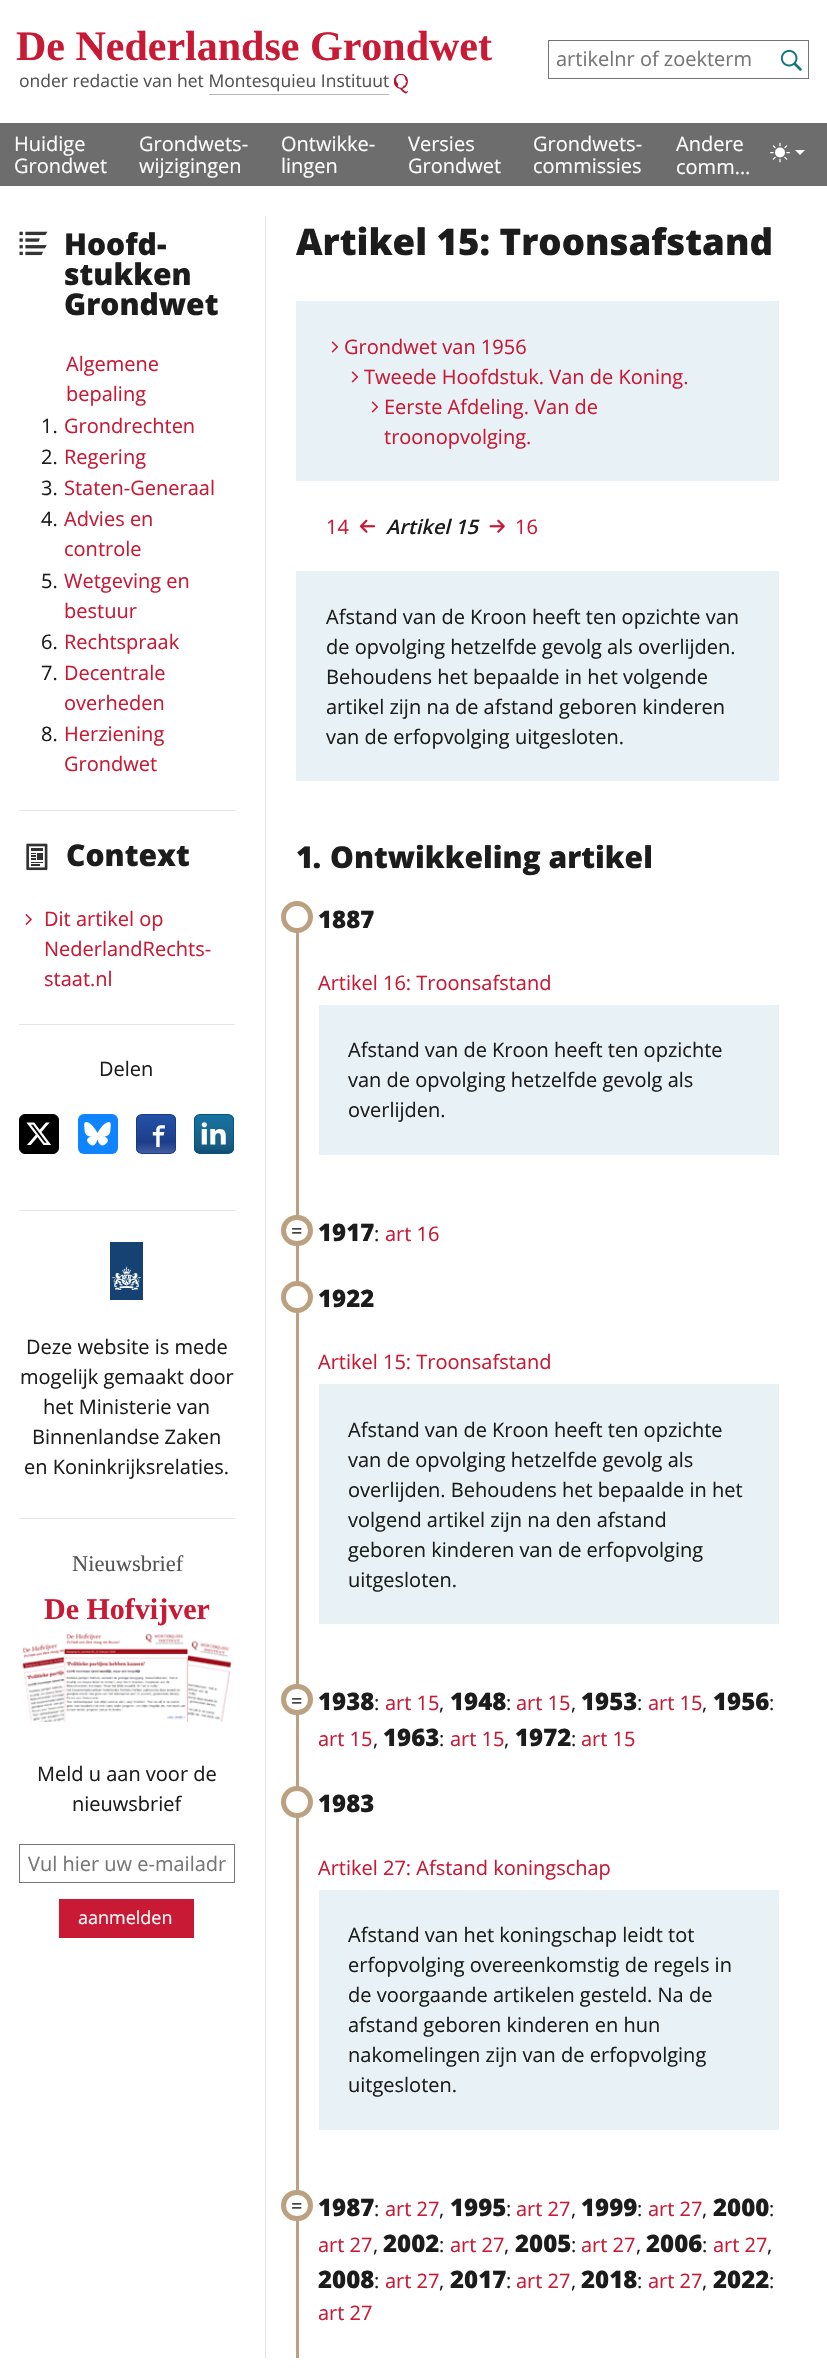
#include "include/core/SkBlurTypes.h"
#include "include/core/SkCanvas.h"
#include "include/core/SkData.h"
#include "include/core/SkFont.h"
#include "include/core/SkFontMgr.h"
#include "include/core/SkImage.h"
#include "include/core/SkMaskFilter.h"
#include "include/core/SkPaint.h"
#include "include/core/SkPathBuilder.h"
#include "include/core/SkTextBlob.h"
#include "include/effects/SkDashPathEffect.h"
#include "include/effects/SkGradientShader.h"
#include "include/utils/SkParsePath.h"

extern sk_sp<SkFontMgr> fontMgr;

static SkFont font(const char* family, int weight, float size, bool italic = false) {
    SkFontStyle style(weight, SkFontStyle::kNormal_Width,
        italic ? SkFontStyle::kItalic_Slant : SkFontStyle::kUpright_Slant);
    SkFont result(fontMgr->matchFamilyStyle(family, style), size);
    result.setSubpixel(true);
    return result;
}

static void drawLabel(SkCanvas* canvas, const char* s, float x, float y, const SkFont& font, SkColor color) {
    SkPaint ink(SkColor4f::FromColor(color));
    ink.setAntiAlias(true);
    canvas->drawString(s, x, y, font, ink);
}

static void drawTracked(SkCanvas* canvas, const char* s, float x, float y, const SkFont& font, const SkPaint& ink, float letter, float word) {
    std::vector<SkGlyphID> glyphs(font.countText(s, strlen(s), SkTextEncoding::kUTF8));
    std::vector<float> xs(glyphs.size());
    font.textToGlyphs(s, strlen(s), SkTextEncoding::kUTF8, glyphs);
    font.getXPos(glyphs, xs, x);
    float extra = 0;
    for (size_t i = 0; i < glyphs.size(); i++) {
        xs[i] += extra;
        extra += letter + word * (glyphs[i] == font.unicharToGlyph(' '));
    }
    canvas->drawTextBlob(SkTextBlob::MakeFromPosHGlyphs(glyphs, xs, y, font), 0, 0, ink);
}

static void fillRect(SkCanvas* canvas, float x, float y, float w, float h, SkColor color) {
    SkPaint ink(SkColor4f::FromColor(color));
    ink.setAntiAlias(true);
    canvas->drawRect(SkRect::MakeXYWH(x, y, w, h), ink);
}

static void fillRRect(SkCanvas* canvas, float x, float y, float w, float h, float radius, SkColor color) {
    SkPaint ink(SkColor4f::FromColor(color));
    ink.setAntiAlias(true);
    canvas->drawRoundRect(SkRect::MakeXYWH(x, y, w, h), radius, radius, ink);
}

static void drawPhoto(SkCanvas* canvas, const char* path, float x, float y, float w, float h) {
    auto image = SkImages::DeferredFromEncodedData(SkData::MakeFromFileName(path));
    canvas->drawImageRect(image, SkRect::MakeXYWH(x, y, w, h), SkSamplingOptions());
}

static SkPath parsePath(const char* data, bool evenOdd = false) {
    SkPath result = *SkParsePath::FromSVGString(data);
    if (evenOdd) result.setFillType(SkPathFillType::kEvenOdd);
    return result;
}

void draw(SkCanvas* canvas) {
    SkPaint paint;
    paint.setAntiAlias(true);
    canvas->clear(0xFFFFFFFF);
    SkFont font1 = font("Liberation Serif", 700, 42);
    drawLabel(canvas, "De Nederlandse Grondwet", 16, 60, font1, 0xFFC91A35);
    SkFont font2 = font("Open Sans", 400, 17.5f);
    drawLabel(canvas, "onder redactie van het Montesquieu Instituut", 19, 87, font2, 0xFF535352);
    drawPhoto(canvas, "assets/img1.png", 394, 74, 14, 20);
    fillRect(canvas, 209, 94, 180, 1, 0xFFB6B6B6);
    paint.setStroke(true);
    paint.setStrokeWidth(1);
    paint.setColor(0xFF757575);
    canvas->drawRect(SkRect::MakeXYWH(548.5f, 40.5f, 260, 38), paint);
    SkFont font3 = font("Open Sans", 400, 20);
    drawLabel(canvas, "artikelnr of zoekterm", 556, 66, font3, 0xFF767676);
    drawPhoto(canvas, "assets/img2.png", 780, 49, 22, 22);
    fillRect(canvas, 0, 123, 827, 63, 0xFF6D6D6D);
    drawLabel(canvas, "Huidige", 14, 151, font3, 0xFFFEFEFE);
    drawLabel(canvas, "Grondwet", 14, 173, font3, 0xFFFEFEFE);
    drawLabel(canvas, "Grondwets-", 139, 151, font3, 0xFFFEFEFE);
    drawLabel(canvas, "wijzigingen", 139, 173, font3, 0xFFFEFEFE);
    drawLabel(canvas, "Ontwikke-", 281, 151, font3, 0xFFFEFEFE);
    drawLabel(canvas, "lingen", 281, 173, font3, 0xFFFEFEFE);
    drawLabel(canvas, "Versies", 408, 151, font3, 0xFFFEFEFE);
    drawLabel(canvas, "Grondwet", 408, 173, font3, 0xFFFEFEFE);
    drawLabel(canvas, "Grondwets-", 533, 151, font3, 0xFFFEFEFE);
    drawLabel(canvas, "commissies", 533, 173, font3, 0xFFFEFEFE);
    drawLabel(canvas, "Andere", 676, 151, font3, 0xFFFEFEFE);
    drawLabel(canvas, "comm…", 676, 174, font3, 0xFFFEFEFE);
    drawPhoto(canvas, "assets/img3.png", 770, 142, 20, 21);
    paint.setStroke(false);
    paint.setColor(0xFFFFFFFF);
    canvas->drawPath(parsePath("M795 150H805L800 155Z"), paint);
    fillRect(canvas, 265, 216, 1, 2142, 0xFFE5E5E7);
    drawPhoto(canvas, "assets/img4.png", 19, 231, 29, 25);
    SkFont font4 = font("Open Sans", 800, 30);
    drawLabel(canvas, "Hoofd-", 64, 255, font4, 0xFF1C1C1C);
    drawLabel(canvas, "stukken", 64, 285, font4, 0xFF1C1C1C);
    drawLabel(canvas, "Grondwet", 64, 315, font4, 0xFF1C1C1C);
    drawLabel(canvas, "Algemene", 66, 371, font3, 0xFFC91A35);
    drawLabel(canvas, "bepaling", 66, 401, font3, 0xFFC91A35);
    drawLabel(canvas, "1.", 41, 433, font3, 0xFF1C1C1C);
    drawLabel(canvas, "Grondrechten", 64, 433, font3, 0xFFC91A35);
    drawLabel(canvas, "2.", 41, 464, font3, 0xFF1C1C1C);
    drawLabel(canvas, "Regering", 64, 464, font3, 0xFFC91A35);
    drawLabel(canvas, "3.", 41, 495, font3, 0xFF1C1C1C);
    drawLabel(canvas, "Staten-Generaal", 64, 495, font3, 0xFFC91A35);
    drawLabel(canvas, "4.", 41, 526, font3, 0xFF1C1C1C);
    drawLabel(canvas, "Advies en", 64, 526, font3, 0xFFC91A35);
    drawLabel(canvas, "controle", 64, 556, font3, 0xFFC91A35);
    drawLabel(canvas, "5.", 41, 588, font3, 0xFF1C1C1C);
    drawLabel(canvas, "Wetgeving en", 64, 588, font3, 0xFFC91A35);
    drawLabel(canvas, "bestuur", 64, 618, font3, 0xFFC91A35);
    drawLabel(canvas, "6.", 41, 649, font3, 0xFF1C1C1C);
    drawLabel(canvas, "Rechtspraak", 64, 649, font3, 0xFFC91A35);
    drawLabel(canvas, "7.", 41, 680, font3, 0xFF1C1C1C);
    drawLabel(canvas, "Decentrale", 64, 680, font3, 0xFFC91A35);
    drawLabel(canvas, "overheden", 64, 710, font3, 0xFFC91A35);
    drawLabel(canvas, "8.", 41, 741, font3, 0xFF1C1C1C);
    drawLabel(canvas, "Herziening", 64, 741, font3, 0xFFC91A35);
    drawLabel(canvas, "Grondwet", 64, 771, font3, 0xFFC91A35);
    fillRect(canvas, 19, 810, 216, 1, 0xFFE5E5E7);
    drawPhoto(canvas, "assets/img5.png", 26, 843, 22, 28);
    drawLabel(canvas, "Context", 66, 866, font4, 0xFF1C1C1C);
    drawPhoto(canvas, "assets/img6.png", 25, 913, 7, 12);
    drawLabel(canvas, "Dit artikel op", 44, 926, font3, 0xFFC91A35);
    drawLabel(canvas, "NederlandRechts-", 44, 956, font3, 0xFFC91A35);
    drawLabel(canvas, "staat.nl", 44, 986, font3, 0xFFC91A35);
    SkFont font5 = font("Open Sans", 800, 36.6f);
    drawLabel(canvas, "Artikel 15: Troonsafstand", 296, 255, font5, 0xFF1C1C1C);
    fillRect(canvas, 296, 301, 483, 180, 0xFFE8F2F6);
    drawPhoto(canvas, "assets/img7.png", 331, 341, 8, 12);
    drawLabel(canvas, "Grondwet van 1956", 344, 354, font3, 0xFFC91A35);
    drawPhoto(canvas, "assets/img7.png", 351, 371, 8, 12);
    drawLabel(canvas, "Tweede Hoofdstuk. Van de Koning.", 364, 384, font3, 0xFFC91A35);
    drawPhoto(canvas, "assets/img7.png", 371, 401, 8, 12);
    drawLabel(canvas, "Eerste Afdeling. Van de", 384, 414, font3, 0xFFC91A35);
    drawLabel(canvas, "troonopvolging.", 384, 444, font3, 0xFFC91A35);
    drawLabel(canvas, "14", 326, 534, font3, 0xFFC91A35);
    drawPhoto(canvas, "assets/img8.png", 359, 519, 17, 14);
    SkFont font6 = font("Open Sans", 600, 20, true);
    drawLabel(canvas, "Artikel 15", 386, 534, font6, 0xFF1C1C1C);
    drawPhoto(canvas, "assets/img9.png", 489, 519, 16, 14);
    drawLabel(canvas, "16", 515, 534, font3, 0xFFC91A35);
    fillRect(canvas, 296, 571, 483, 210, 0xFFE8F2F6);
    drawLabel(canvas, "Afstand van de Kroon heeft ten opzichte van", 326, 624, font3, 0xFF1C1C1C);
    drawLabel(canvas, "de opvolging hetzelfde gevolg als overlijden.", 326, 654, font3, 0xFF1C1C1C);
    drawLabel(canvas, "Behoudens het bepaalde in het volgende", 326, 684, font3, 0xFF1C1C1C);
    drawLabel(canvas, "artikel zijn na de afstand geboren kinderen", 326, 714, font3, 0xFF1C1C1C);
    drawLabel(canvas, "van de erfopvolging uitgesloten.", 326, 744, font3, 0xFF1C1C1C);
    paint.setColor(0xFF1C1C1C);
    drawTracked(canvas, "1.", 296, 868, font4, paint, -1, 0);
    drawLabel(canvas, "Ontwikkeling artikel", 330, 868, font4, 0xFF1C1C1C);
    fillRect(canvas, 296, 901, 3, 1457, 0xFFBCA181);
    paint.setColor(0xFFFFFFFF);
    canvas->drawCircle(297, 917, 13.5f, paint);
    paint.setStroke(true);
    paint.setStrokeWidth(5);
    paint.setColor(0xFFBCA181);
    canvas->drawCircle(297, 917, 13.5f, paint);
    SkFont font7 = font("Open Sans", 800, 24);
    drawLabel(canvas, "1887", 318, 928, font7, 0xFF1C1C1C);
    drawLabel(canvas, "Artikel 16: Troonsafstand", 318, 990, font3, 0xFFC91A35);
    fillRect(canvas, 319, 1005, 460, 150, 0xFFE8F2F6);
    drawLabel(canvas, "Afstand van de Kroon heeft ten opzichte", 348, 1057, font3, 0xFF1C1C1C);
    drawLabel(canvas, "van de opvolging hetzelfde gevolg als", 348, 1087, font3, 0xFF1C1C1C);
    drawLabel(canvas, "overlijden.", 348, 1117, font3, 0xFF1C1C1C);
    paint.setStroke(false);
    paint.setColor(0xFFFFFFFF);
    canvas->drawRoundRect(SkRect::MakeXYWH(283.5f, 1217.5f, 27, 26), 13, 13, paint);
    paint.setStroke(true);
    paint.setColor(0xFFBCA181);
    canvas->drawRoundRect(SkRect::MakeXYWH(283.5f, 1217.5f, 27, 26), 13, 13, paint);
    drawLabel(canvas, "=", 291, 1238, font3, 0xFF1C1C1C);
    drawLabel(canvas, "1917", 318, 1241, font7, 0xFF1C1C1C);
    drawLabel(canvas, ":", 374, 1241, font3, 0xFF1C1C1C);
    drawLabel(canvas, "art 16", 385, 1241, font3, 0xFFC91A35);
    paint.setStroke(false);
    paint.setColor(0xFFFFFFFF);
    canvas->drawCircle(297, 1297, 13.5f, paint);
    paint.setStroke(true);
    paint.setColor(0xFFBCA181);
    canvas->drawCircle(297, 1297, 13.5f, paint);
    drawLabel(canvas, "1922", 318, 1307, font7, 0xFF1C1C1C);
    drawLabel(canvas, "Artikel 15: Troonsafstand", 318, 1369, font3, 0xFFC91A35);
    fillRect(canvas, 319, 1384, 460, 240, 0xFFE8F2F6);
    drawLabel(canvas, "Afstand van de Kroon heeft ten opzichte", 348, 1437, font3, 0xFF1C1C1C);
    drawLabel(canvas, "van de opvolging hetzelfde gevolg als", 348, 1467, font3, 0xFF1C1C1C);
    drawLabel(canvas, "overlijden. Behoudens het bepaalde in het", 348, 1497, font3, 0xFF1C1C1C);
    drawLabel(canvas, "volgend artikel zijn na den afstand", 348, 1527, font3, 0xFF1C1C1C);
    drawLabel(canvas, "geboren kinderen van de erfopvolging", 348, 1557, font3, 0xFF1C1C1C);
    drawLabel(canvas, "uitgesloten.", 348, 1587, font3, 0xFF1C1C1C);
    paint.setStroke(false);
    paint.setColor(0xFFFFFFFF);
    canvas->drawRoundRect(SkRect::MakeXYWH(283.5f, 1686.5f, 27, 26), 13, 13, paint);
    paint.setStroke(true);
    paint.setColor(0xFFBCA181);
    canvas->drawRoundRect(SkRect::MakeXYWH(283.5f, 1686.5f, 27, 26), 13, 13, paint);
    drawLabel(canvas, "=", 291, 1708, font3, 0xFF1C1C1C);
    drawLabel(canvas, "1938", 318, 1710, font7, 0xFF1C1C1C);
    drawLabel(canvas, ":", 374, 1710, font3, 0xFF1C1C1C);
    drawLabel(canvas, "art 15", 385, 1710, font3, 0xFFC91A35);
    drawLabel(canvas, ",", 439, 1710, font3, 0xFF1C1C1C);
    drawLabel(canvas, "1948", 450, 1710, font7, 0xFF1C1C1C);
    drawLabel(canvas, ":", 506, 1710, font3, 0xFF1C1C1C);
    drawLabel(canvas, "art 15", 516, 1710, font3, 0xFFC91A35);
    drawLabel(canvas, ",", 571, 1710, font3, 0xFF1C1C1C);
    drawLabel(canvas, "1953", 581, 1710, font7, 0xFF1C1C1C);
    drawLabel(canvas, ":", 637, 1710, font3, 0xFF1C1C1C);
    drawLabel(canvas, "art 15", 648, 1710, font3, 0xFFC91A35);
    drawLabel(canvas, ",", 702, 1710, font3, 0xFF1C1C1C);
    drawLabel(canvas, "1956", 713, 1710, font7, 0xFF1C1C1C);
    drawLabel(canvas, ":", 769, 1710, font3, 0xFF1C1C1C);
    drawLabel(canvas, "art 15", 318, 1746, font3, 0xFFC91A35);
    drawLabel(canvas, ",", 373, 1746, font3, 0xFF1C1C1C);
    drawLabel(canvas, "1963", 383, 1746, font7, 0xFF1C1C1C);
    drawLabel(canvas, ":", 439, 1746, font3, 0xFF1C1C1C);
    drawLabel(canvas, "art 15", 450, 1746, font3, 0xFFC91A35);
    drawLabel(canvas, ",", 504, 1746, font3, 0xFF1C1C1C);
    drawLabel(canvas, "1972", 515, 1746, font7, 0xFF1C1C1C);
    drawLabel(canvas, ":", 571, 1746, font3, 0xFF1C1C1C);
    drawLabel(canvas, "art 15", 581, 1746, font3, 0xFFC91A35);
    paint.setStroke(false);
    paint.setColor(0xFFFFFFFF);
    canvas->drawCircle(297, 1802, 13.5f, paint);
    paint.setStroke(true);
    paint.setColor(0xFFBCA181);
    canvas->drawCircle(297, 1802, 13.5f, paint);
    drawLabel(canvas, "1983", 318, 1812, font7, 0xFF1C1C1C);
    drawLabel(canvas, "Artikel 27: Afstand koningschap", 318, 1875, font3, 0xFFC91A35);
    fillRect(canvas, 319, 1890, 460, 240, 0xFFE8F2F6);
    drawLabel(canvas, "Afstand van het koningschap leidt tot", 348, 1942, font3, 0xFF1C1C1C);
    drawLabel(canvas, "erfopvolging overeenkomstig de regels in", 348, 1972, font3, 0xFF1C1C1C);
    drawLabel(canvas, "de voorgaande artikelen gesteld. Na de", 348, 2002, font3, 0xFF1C1C1C);
    drawLabel(canvas, "afstand geboren kinderen en hun", 348, 2032, font3, 0xFF1C1C1C);
    drawLabel(canvas, "nakomelingen zijn van de erfopvolging", 348, 2062, font3, 0xFF1C1C1C);
    drawLabel(canvas, "uitgesloten.", 348, 2092, font3, 0xFF1C1C1C);
    paint.setStroke(false);
    paint.setColor(0xFFFFFFFF);
    canvas->drawRoundRect(SkRect::MakeXYWH(283.5f, 2192.5f, 27, 26), 13, 13, paint);
    paint.setStroke(true);
    paint.setColor(0xFFBCA181);
    canvas->drawRoundRect(SkRect::MakeXYWH(283.5f, 2192.5f, 27, 26), 13, 13, paint);
    drawLabel(canvas, "=", 291, 2213, font3, 0xFF1C1C1C);
    drawLabel(canvas, "1987", 318, 2216, font7, 0xFF1C1C1C);
    drawLabel(canvas, ":", 374, 2216, font3, 0xFF1C1C1C);
    drawLabel(canvas, "art 27", 385, 2216, font3, 0xFFC91A35);
    drawLabel(canvas, ",", 439, 2216, font3, 0xFF1C1C1C);
    drawLabel(canvas, "1995", 450, 2216, font7, 0xFF1C1C1C);
    drawLabel(canvas, ":", 506, 2216, font3, 0xFF1C1C1C);
    drawLabel(canvas, "art 27", 516, 2216, font3, 0xFFC91A35);
    drawLabel(canvas, ",", 571, 2216, font3, 0xFF1C1C1C);
    drawLabel(canvas, "1999", 581, 2216, font7, 0xFF1C1C1C);
    drawLabel(canvas, ":", 637, 2216, font3, 0xFF1C1C1C);
    drawLabel(canvas, "art 27", 648, 2216, font3, 0xFFC91A35);
    drawLabel(canvas, ",", 702, 2216, font3, 0xFF1C1C1C);
    drawLabel(canvas, "2000", 713, 2216, font7, 0xFF1C1C1C);
    drawLabel(canvas, ":", 769, 2216, font3, 0xFF1C1C1C);
    drawLabel(canvas, "art 27", 318, 2252, font3, 0xFFC91A35);
    drawLabel(canvas, ",", 373, 2252, font3, 0xFF1C1C1C);
    drawLabel(canvas, "2002", 383, 2252, font7, 0xFF1C1C1C);
    drawLabel(canvas, ":", 439, 2252, font3, 0xFF1C1C1C);
    drawLabel(canvas, "art 27", 450, 2252, font3, 0xFFC91A35);
    drawLabel(canvas, ",", 504, 2252, font3, 0xFF1C1C1C);
    drawLabel(canvas, "2005", 515, 2252, font7, 0xFF1C1C1C);
    drawLabel(canvas, ":", 571, 2252, font3, 0xFF1C1C1C);
    drawLabel(canvas, "art 27", 581, 2252, font3, 0xFFC91A35);
    drawLabel(canvas, ",", 636, 2252, font3, 0xFF1C1C1C);
    drawLabel(canvas, "2006", 646, 2252, font7, 0xFF1C1C1C);
    drawLabel(canvas, ":", 702, 2252, font3, 0xFF1C1C1C);
    drawLabel(canvas, "art 27", 713, 2252, font3, 0xFFC91A35);
    drawLabel(canvas, ",", 767, 2252, font3, 0xFF1C1C1C);
    drawLabel(canvas, "2008", 318, 2288, font7, 0xFF1C1C1C);
    drawLabel(canvas, ":", 374, 2288, font3, 0xFF1C1C1C);
    drawLabel(canvas, "art 27", 385, 2288, font3, 0xFFC91A35);
    drawLabel(canvas, ",", 439, 2288, font3, 0xFF1C1C1C);
    drawLabel(canvas, "2017", 450, 2288, font7, 0xFF1C1C1C);
    drawLabel(canvas, ":", 506, 2288, font3, 0xFF1C1C1C);
    drawLabel(canvas, "art 27", 516, 2288, font3, 0xFFC91A35);
    drawLabel(canvas, ",", 571, 2288, font3, 0xFF1C1C1C);
    drawLabel(canvas, "2018", 581, 2288, font7, 0xFF1C1C1C);
    drawLabel(canvas, ":", 637, 2288, font3, 0xFF1C1C1C);
    drawLabel(canvas, "art 27", 648, 2288, font3, 0xFFC91A35);
    drawLabel(canvas, ",", 702, 2288, font3, 0xFF1C1C1C);
    drawLabel(canvas, "2022", 713, 2288, font7, 0xFF1C1C1C);
    drawLabel(canvas, ":", 769, 2288, font3, 0xFF1C1C1C);
    drawLabel(canvas, "art 27", 318, 2320, font3, 0xFFC91A35);
    fillRect(canvas, 19, 1024, 216, 1, 0xFFE5E5E7);
    drawLabel(canvas, "Delen", 99, 1076, font3, 0xFF1C1C1C);
    paint.setStroke(false);
    paint.setColor(0xFF000000);
    canvas->drawRoundRect(SkRect::MakeXYWH(19.5f, 1114.5f, 39, 39), 5.5f, 5.5f, paint);
    paint.setStroke(true);
    paint.setStrokeWidth(1);
    canvas->drawRoundRect(SkRect::MakeXYWH(19.5f, 1114.5f, 39, 39), 5.5f, 5.5f, paint);
    drawPhoto(canvas, "assets/img10.png", 26, 1122, 25, 23);
    fillRRect(canvas, 78, 1114, 40, 40, 6, 0xFF1083FE);
    drawPhoto(canvas, "assets/img11.png", 84, 1122, 27, 24);
    canvas->save();
    canvas->clipPath(parsePath("M142 1114H170C173.5 1114 176 1116.5 176 1120V1148C176 1151.5 173.5 1154 170 1154H142C138.5 1154 136 1151.5 136 1148V1120C136 1116.5 138.5 1114 142 1114Z"), true);
    paint.setStroke(false);
    {
        const SkColor colors[] = {0xFF2452A8, 0xFF1C3D89, 0xFF445EA0};
        const float stops[] = {0, 0.72f, 1};
        const SkPoint ends[] = {{156, 1115}, {156, 1153}};
        paint.setShader(SkGradientShader::MakeLinear(ends, colors, stops, 3, SkTileMode::kClamp));
        paint.setAlpha(255);
    }
    canvas->drawRect(SkRect::MakeXYWH(136, 1115, 40, 38), paint);
    canvas->restore();
    paint.setStroke(true);
    paint.setShader(nullptr);
    paint.setColor(0xFF163A87);
    canvas->drawRoundRect(SkRect::MakeXYWH(136.5f, 1114.5f, 39, 39), 5.5f, 5.5f, paint);
    drawPhoto(canvas, "assets/img12.png", 152, 1125, 13, 23);
    canvas->save();
    canvas->clipPath(parsePath("M200 1114H228C231.5 1114 234 1116.5 234 1120V1148C234 1151.5 231.5 1154 228 1154H200C196.5 1154 194 1151.5 194 1148V1120C194 1116.5 196.5 1114 200 1114Z"), true);
    paint.setStroke(false);
    {
        const SkColor colors[] = {0xFF1773A0, 0xFF175C84, 0xFF124C72};
        const float stops[] = {0, 0.82f, 1};
        const SkPoint ends[] = {{214, 1115}, {214, 1153}};
        paint.setShader(SkGradientShader::MakeLinear(ends, colors, stops, 3, SkTileMode::kClamp));
        paint.setAlpha(255);
    }
    canvas->drawRect(SkRect::MakeXYWH(194, 1115, 40, 38), paint);
    canvas->restore();
    paint.setStroke(true);
    paint.setShader(nullptr);
    paint.setColor(0xFF075479);
    canvas->drawRoundRect(SkRect::MakeXYWH(194.5f, 1114.5f, 39, 39), 5.5f, 5.5f, paint);
    drawPhoto(canvas, "assets/img13.png", 201, 1122, 25, 23);
    fillRect(canvas, 19, 1210, 216, 1, 0xFFE5E5E7);
    drawPhoto(canvas, "assets/img14.png", 110, 1242, 33, 58);
    drawLabel(canvas, "Deze website is mede", 26, 1354, font3, 0xFF1C1C1C);
    drawLabel(canvas, "mogelijk gemaakt door", 20, 1384, font3, 0xFF1C1C1C);
    drawLabel(canvas, "het Ministerie van", 43, 1414, font3, 0xFF1C1C1C);
    drawLabel(canvas, "Binnenlandse Zaken", 32, 1444, font3, 0xFF1C1C1C);
    drawLabel(canvas, "en Koninkrijksrelaties.", 24, 1474, font3, 0xFF1C1C1C);
    fillRect(canvas, 19, 1518, 216, 1, 0xFFE5E5E7);
    SkFont font8 = font("Liberation Serif", 400, 22.5f);
    drawLabel(canvas, "Nieuwsbrief", 72, 1571, font8, 0xFF535352);
    SkFont font9 = font("Liberation Serif", 700, 30);
    drawLabel(canvas, "De Hofvijver", 44, 1619, font9, 0xFFC91A35);
    drawPhoto(canvas, "assets/img15.png", 21, 1633, 211, 89);
    drawLabel(canvas, "Meld u aan voor de", 37, 1781, font3, 0xFF1C1C1C);
    drawLabel(canvas, "nieuwsbrief", 72, 1811, font3, 0xFF1C1C1C);
    paint.setColor(0xFF757575);
    canvas->drawRect(SkRect::MakeXYWH(19.5f, 1844.5f, 215, 38), paint);
    drawLabel(canvas, "Vul hier uw e-mailadr", 28, 1871, font3, 0xFF767676);
    fillRect(canvas, 59, 1899, 135, 39, 0xFFC91A35);
    SkFont font10 = font("Open Sans", 400, 18);
    drawLabel(canvas, "aanmelden", 78, 1924, font10, 0xFFFEFEFE);
}
